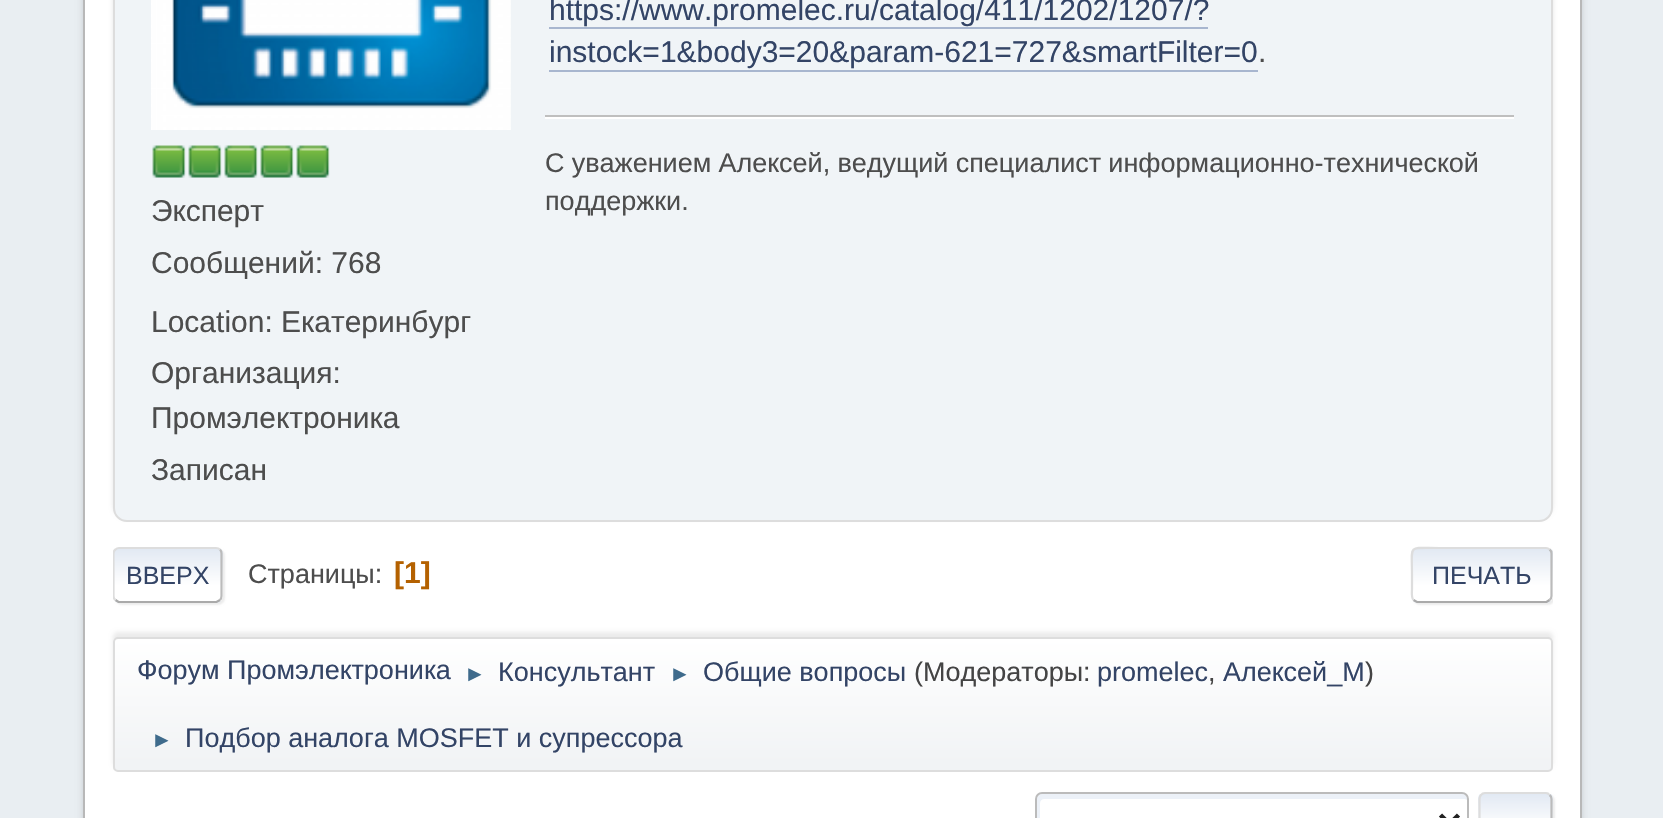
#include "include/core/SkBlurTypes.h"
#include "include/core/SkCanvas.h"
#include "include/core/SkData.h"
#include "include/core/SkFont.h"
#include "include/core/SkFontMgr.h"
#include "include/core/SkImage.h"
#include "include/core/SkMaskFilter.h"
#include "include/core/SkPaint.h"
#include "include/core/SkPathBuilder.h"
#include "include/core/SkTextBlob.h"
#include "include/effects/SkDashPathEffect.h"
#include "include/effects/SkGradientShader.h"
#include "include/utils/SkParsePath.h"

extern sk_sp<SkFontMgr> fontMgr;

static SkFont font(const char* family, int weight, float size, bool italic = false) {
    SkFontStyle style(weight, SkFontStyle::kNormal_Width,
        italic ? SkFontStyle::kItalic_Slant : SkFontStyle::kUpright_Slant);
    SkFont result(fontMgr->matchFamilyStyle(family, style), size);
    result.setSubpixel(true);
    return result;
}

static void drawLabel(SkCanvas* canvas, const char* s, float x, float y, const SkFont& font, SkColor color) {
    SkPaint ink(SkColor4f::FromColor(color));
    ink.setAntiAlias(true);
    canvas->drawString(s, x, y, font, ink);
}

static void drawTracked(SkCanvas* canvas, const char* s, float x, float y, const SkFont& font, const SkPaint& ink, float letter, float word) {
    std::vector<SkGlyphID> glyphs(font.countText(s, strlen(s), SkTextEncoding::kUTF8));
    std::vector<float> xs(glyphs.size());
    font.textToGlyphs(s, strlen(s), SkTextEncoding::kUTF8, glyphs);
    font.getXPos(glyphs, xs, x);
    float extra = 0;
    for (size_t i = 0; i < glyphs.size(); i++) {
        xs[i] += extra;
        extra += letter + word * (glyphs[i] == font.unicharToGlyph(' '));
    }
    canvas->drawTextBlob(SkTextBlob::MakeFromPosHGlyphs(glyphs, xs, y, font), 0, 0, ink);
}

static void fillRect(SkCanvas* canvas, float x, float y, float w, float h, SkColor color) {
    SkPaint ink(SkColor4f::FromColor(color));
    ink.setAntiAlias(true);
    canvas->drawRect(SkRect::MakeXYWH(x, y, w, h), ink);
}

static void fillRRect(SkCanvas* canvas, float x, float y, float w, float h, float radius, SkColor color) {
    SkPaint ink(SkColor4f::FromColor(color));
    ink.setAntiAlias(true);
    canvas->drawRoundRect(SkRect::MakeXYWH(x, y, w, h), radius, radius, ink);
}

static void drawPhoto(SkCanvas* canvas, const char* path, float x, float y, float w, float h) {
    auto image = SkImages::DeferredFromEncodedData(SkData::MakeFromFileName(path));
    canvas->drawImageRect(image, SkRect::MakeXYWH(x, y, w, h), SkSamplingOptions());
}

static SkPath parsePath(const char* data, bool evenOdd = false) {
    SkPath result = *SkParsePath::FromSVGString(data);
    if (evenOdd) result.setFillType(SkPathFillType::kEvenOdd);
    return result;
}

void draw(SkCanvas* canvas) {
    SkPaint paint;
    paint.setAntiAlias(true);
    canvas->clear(0xFFE9EEF2);
    paint.setColor(0x24000000);
    paint.setMaskFilter(SkMaskFilter::MakeBlur(kNormal_SkBlurStyle, 3.5f));
    canvas->drawRoundRect(SkRect::MakeXYWH(83, -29, 1499, 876), 18, 18, paint);
    paint.setMaskFilter(nullptr);
    paint.setColor(0xFFFFFFFF);
    canvas->drawRect(SkRect::MakeXYWH(84, -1, 1497, 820), paint);
    paint.setStroke(true);
    paint.setStrokeWidth(2);
    paint.setColor(0xFFB8B8B8);
    canvas->drawRect(SkRect::MakeXYWH(84, -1, 1497, 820), paint);
    paint.setStroke(false);
    paint.setColor(0x1A000000);
    paint.setMaskFilter(SkMaskFilter::MakeBlur(kNormal_SkBlurStyle, 2));
    canvas->drawRoundRect(SkRect::MakeXYWH(113, -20, 1440, 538), 14, 14, paint);
    paint.setMaskFilter(nullptr);
    paint.setColor(0xFFF0F4F7);
    canvas->drawRoundRect(SkRect::MakeXYWH(114, -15, 1438, 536), 13, 13, paint);
    paint.setStroke(true);
    paint.setColor(0xFFDDDDDD);
    canvas->drawRoundRect(SkRect::MakeXYWH(114, -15, 1438, 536), 13, 13, paint);
    SkFont font1 = font("Liberation Sans", 400, 30);
    drawLabel(canvas, "https://www.promelec.ru/catalog/411/1202/1207/?", 549, 20, font1, 0xFF334466);
    fillRect(canvas, 549, 27, 659, 2, 0xFFA8B6CF);
    drawLabel(canvas, "instock=1&body3=20&param-621=727&smartFilter=0", 549, 62, font1, 0xFF334466);
    fillRect(canvas, 549, 70, 709, 2, 0xFFA8B6CF);
    drawLabel(canvas, ".", 1258, 62, font1, 0xFF4D4D4D);
    fillRect(canvas, 545, 117, 969, 2, 0xFFFFFFFF);
    fillRect(canvas, 545, 115, 969, 2, 0xFFBFBFBF);
    SkFont font2 = font("Liberation Sans", 400, 27);
    paint.setStroke(false);
    paint.setColor(0xFF4D4D4D);
    drawTracked(canvas, "С уважением Алексей, ведущий специалист информационно-технической", 545, 172, font2, paint, 0, -0.25f);
    drawLabel(canvas, "поддержки.", 545, 210, font2, 0xFF4D4D4D);
    drawPhoto(canvas, "assets/img1.png", 151, 0, 360, 130);
    drawPhoto(canvas, "assets/img2.png", 152, 145, 34, 33);
    drawPhoto(canvas, "assets/img2.png", 188, 145, 34, 33);
    drawPhoto(canvas, "assets/img2.png", 224, 145, 34, 33);
    drawPhoto(canvas, "assets/img3.png", 260, 145, 34, 33);
    drawPhoto(canvas, "assets/img2.png", 296, 145, 34, 33);
    drawLabel(canvas, "Эксперт", 151, 221, font1, 0xFF4D4D4D);
    drawLabel(canvas, "Сообщений: 768", 151, 273, font1, 0xFF4D4D4D);
    drawLabel(canvas, "Location: Екатеринбург", 151, 332, font1, 0xFF4D4D4D);
    drawLabel(canvas, "Организация:", 151, 383, font1, 0xFF4D4D4D);
    drawLabel(canvas, "Промэлектроника", 151, 428, font1, 0xFF4D4D4D);
    drawLabel(canvas, "Записан", 151, 480, font1, 0xFF4D4D4D);
    paint.setColor(0x91DDDDDD);
    paint.setMaskFilter(SkMaskFilter::MakeBlur(kNormal_SkBlurStyle, 1));
    canvas->drawRoundRect(SkRect::MakeXYWH(115, 549, 110, 56), 7, 7, paint);
    paint.setMaskFilter(nullptr);
    canvas->save();
    canvas->clipPath(parsePath("M120 547H216C220 547 223 550 223 554V596C223 600 220 603 216 603H120C116 603 113 600 113 596V554C113 550 116 547 120 547Z"), true);
    {
        const SkColor colors[] = {0xFFE2E9F3, 0xFFFFFFFF};
        const float stops[] = {0, 0.7f};
        const SkPoint ends[] = {{168, 549}, {168, 601}};
        paint.setShader(SkGradientShader::MakeLinear(ends, colors, stops, 2, SkTileMode::kClamp));
        paint.setAlpha(255);
    }
    canvas->drawRect(SkRect::MakeXYWH(113, 549, 110, 52), paint);
    {
        const SkColor colors[] = {0xFFE2E9F3, 0xFFFFFFFF};
        const float stops[] = {0, 0.7f};
        const SkPoint ends[] = {{168, 601}, {168, 653}};
        paint.setShader(SkGradientShader::MakeLinear(ends, colors, stops, 2, SkTileMode::kClamp));
        paint.setAlpha(255);
    }
    canvas->drawRect(SkRect::MakeXYWH(113, 601, 110, 2), paint);
    canvas->restore();
    paint.setStroke(true);
    paint.setStrokeWidth(2.2f);
    paint.setShader(nullptr);
    paint.setColor(0xFFBBBBBB);
    canvas->drawPath(parsePath("M220 549.5C221 550.5 221.5 552 221.5 553.5V596C221.5 597.5 221 599 220 600"), paint);
    paint.setColor(0xFFAAAAAA);
    canvas->drawPath(parsePath("M220 600L216.5 602H118.5L115.5 600"), paint);
    canvas->save();
    canvas->clipRect(SkRect::MakeXYWH(113, 531, 1440, 88));
    paint.setColor(0xFFDDDDDD);
    canvas->drawPath(parsePath("M115.5 600C114 599 113.5 597.5 113.5 596V553.5C113.5 552 114 550.5 115.5 549.5C116.5 548.5 118 548 119 548H216C217.5 548 219 548.5 220 549.5"), paint);
    canvas->restore();
    SkFont font3 = font("Liberation Sans", 400, 25);
    drawLabel(canvas, "ВВЕРХ", 126, 584, font3, 0xFF334466);
    drawLabel(canvas, "Страницы:", 248, 583, font2, 0xFF4D4D4D);
    SkFont font4 = font("Liberation Sans", 700, 30);
    drawLabel(canvas, "[1]", 394, 583, font4, 0xFFB46100);
    canvas->save();
    canvas->clipRect(SkRect::MakeXYWH(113, 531, 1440, 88));
    paint.setStroke(false);
    paint.setColor(0x91DDDDDD);
    paint.setMaskFilter(SkMaskFilter::MakeBlur(kNormal_SkBlurStyle, 1));
    canvas->drawRoundRect(SkRect::MakeXYWH(1413, 549, 142, 56), 7, 7, paint);
    paint.setMaskFilter(nullptr);
    canvas->restore();
    canvas->save();
    canvas->clipPath(parsePath("M1418 547H1546C1550 547 1553 550 1553 554V596C1553 600 1550 603 1546 603H1418C1414 603 1411 600 1411 596V554C1411 550 1414 547 1418 547Z"), true);
    {
        const SkColor colors[] = {0xFFE2E9F3, 0xFFFFFFFF};
        const float stops[] = {0, 0.7f};
        const SkPoint ends[] = {{1482, 549}, {1482, 601}};
        paint.setShader(SkGradientShader::MakeLinear(ends, colors, stops, 2, SkTileMode::kClamp));
        paint.setAlpha(255);
    }
    canvas->drawRect(SkRect::MakeXYWH(1411, 549, 142, 52), paint);
    {
        const SkColor colors[] = {0xFFE2E9F3, 0xFFFFFFFF};
        const float stops[] = {0, 0.7f};
        const SkPoint ends[] = {{1482, 601}, {1482, 653}};
        paint.setShader(SkGradientShader::MakeLinear(ends, colors, stops, 2, SkTileMode::kClamp));
        paint.setAlpha(255);
    }
    canvas->drawRect(SkRect::MakeXYWH(1411, 601, 142, 2), paint);
    canvas->restore();
    paint.setStroke(true);
    paint.setShader(nullptr);
    paint.setColor(0xFFBBBBBB);
    canvas->drawPath(parsePath("M1549.5 549.5C1551 550.5 1551.5 552 1551.5 553.5V596C1551.5 597.5 1551 599 1549.5 600"), paint);
    paint.setColor(0xFFAAAAAA);
    canvas->drawPath(parsePath("M1549.5 600L1546.5 602H1417L1413.5 600"), paint);
    paint.setColor(0xFFDDDDDD);
    canvas->drawPath(parsePath("M1413.5 600C1411 597.5 1412 592 1412 589V575C1412 543.5 1407 548 1439 548H1546C1547 548 1548.5 548.5 1549.5 549.5"), paint);
    drawLabel(canvas, "ПЕЧАТЬ", 1432, 584, font3, 0xFF334466);
    paint.setStroke(false);
    paint.setColor(0x14000000);
    paint.setMaskFilter(SkMaskFilter::MakeBlur(kNormal_SkBlurStyle, 2));
    canvas->drawRoundRect(SkRect::MakeXYWH(113, 632, 1440, 135), 5, 5, paint);
    paint.setMaskFilter(nullptr);
    canvas->save();
    canvas->clipPath(parsePath("M118 637H1548C1551 637 1553 639 1553 642V767C1553 770 1551 772 1548 772H118C115 772 113 770 113 767V642C113 639 115 637 118 637Z"), true);
    {
        const SkColor colors[] = {0xFFFFFFFF, 0xFFF1F3F5};
        const float stops[] = {0, 0.95f};
        const SkPoint ends[] = {{833, 639}, {833, 770}};
        paint.setShader(SkGradientShader::MakeLinear(ends, colors, stops, 2, SkTileMode::kClamp));
        paint.setAlpha(255);
    }
    canvas->drawRect(SkRect::MakeXYWH(113, 639, 1440, 131), paint);
    canvas->restore();
    paint.setStroke(true);
    paint.setStrokeWidth(2);
    paint.setShader(nullptr);
    paint.setColor(0xFFDDDDDD);
    canvas->drawRoundRect(SkRect::MakeXYWH(114, 638, 1438, 133), 4, 4, paint);
    drawLabel(canvas, "Форум Промэлектроника", 137, 679, font2, 0xFF334466);
    SkFont font5 = font("Liberation Sans", 400, 22);
    drawLabel(canvas, "►", 464, 681, font5, 0xFF3F6B8C);
    drawLabel(canvas, "Консультант", 498, 681, font2, 0xFF334466);
    drawLabel(canvas, "►", 669, 681, font5, 0xFF3F6B8C);
    drawLabel(canvas, "Общие вопросы", 703, 681, font2, 0xFF334466);
    drawLabel(canvas, "(Модераторы:", 914, 681, font2, 0xFF444444);
    drawLabel(canvas, "promelec", 1097, 681, font2, 0xFF334466);
    drawLabel(canvas, ",", 1208, 681, font2, 0xFF444444);
    drawLabel(canvas, "Алексей_М", 1223, 681, font2, 0xFF334466);
    drawLabel(canvas, ")", 1365, 681, font2, 0xFF444444);
    drawLabel(canvas, "►", 151, 747, font5, 0xFF3F6B8C);
    drawLabel(canvas, "Подбор аналога MOSFET и супрессора", 185, 747, font2, 0xFF334466);
    paint.setStroke(false);
    paint.setColor(0xFFECF1F8);
    canvas->drawPath(parsePath("M1044 799H1465L1467 800V799C1467 796 1465 794 1462 794H1042C1039 794 1037 796 1037 799V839C1037 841 1038 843 1040 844V803C1040 801 1042 799 1044 799Z"), paint);
    paint.setStroke(true);
    paint.setColor(0xFFBBBBBB);
    canvas->drawRoundRect(SkRect::MakeXYWH(1036, 793, 432, 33), 6, 6, paint);
    paint.setStrokeWidth(4.5f);
    paint.setColor(0xFF222222);
    canvas->drawPath(parsePath("M1440.5 815L1449.5 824L1458.5 815"), paint);
    paint.setStroke(false);
    paint.setColor(0x91DDDDDD);
    paint.setMaskFilter(SkMaskFilter::MakeBlur(kNormal_SkBlurStyle, 1));
    canvas->drawRoundRect(SkRect::MakeXYWH(1481, 794, 74, 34), 7, 7, paint);
    paint.setMaskFilter(nullptr);
    fillRRect(canvas, 1478, 792, 75, 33, 7, 0xFFFFFFFF);
    canvas->save();
    canvas->clipPath(parsePath("M1485 792H1546C1550 792 1553 795 1553 799V839C1553 843 1550 846 1546 846H1485C1481 846 1478 843 1478 839V799C1478 795 1481 792 1485 792Z"), true);
    {
        const SkColor colors[] = {0xFFE2E9F3, 0xFFFFFFFF};
        const float stops[] = {0, 0.7f};
        const SkPoint ends[] = {{1515, 794}, {1515, 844}};
        paint.setShader(SkGradientShader::MakeLinear(ends, colors, stops, 2, SkTileMode::kClamp));
        paint.setAlpha(255);
    }
    canvas->drawRect(SkRect::MakeXYWH(1478, 794, 75, 24), paint);
    canvas->restore();
    paint.setStroke(true);
    paint.setStrokeWidth(2.2f);
    paint.setShader(nullptr);
    paint.setColor(0xFFBBBBBB);
    canvas->drawPath(parsePath("M1549.5 795C1551 796 1551.5 797.5 1551.5 799V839C1551.5 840.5 1551 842 1549.5 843"), paint);
    paint.setColor(0xFFDDDDDD);
    canvas->drawPath(parsePath("M1481 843C1480 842 1479.5 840.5 1479.5 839V799C1479.5 797.5 1480 796 1481 795C1482 793.5 1483.5 793 1485 793H1546C1547 793 1548.5 793.5 1549.5 795"), paint);
}
